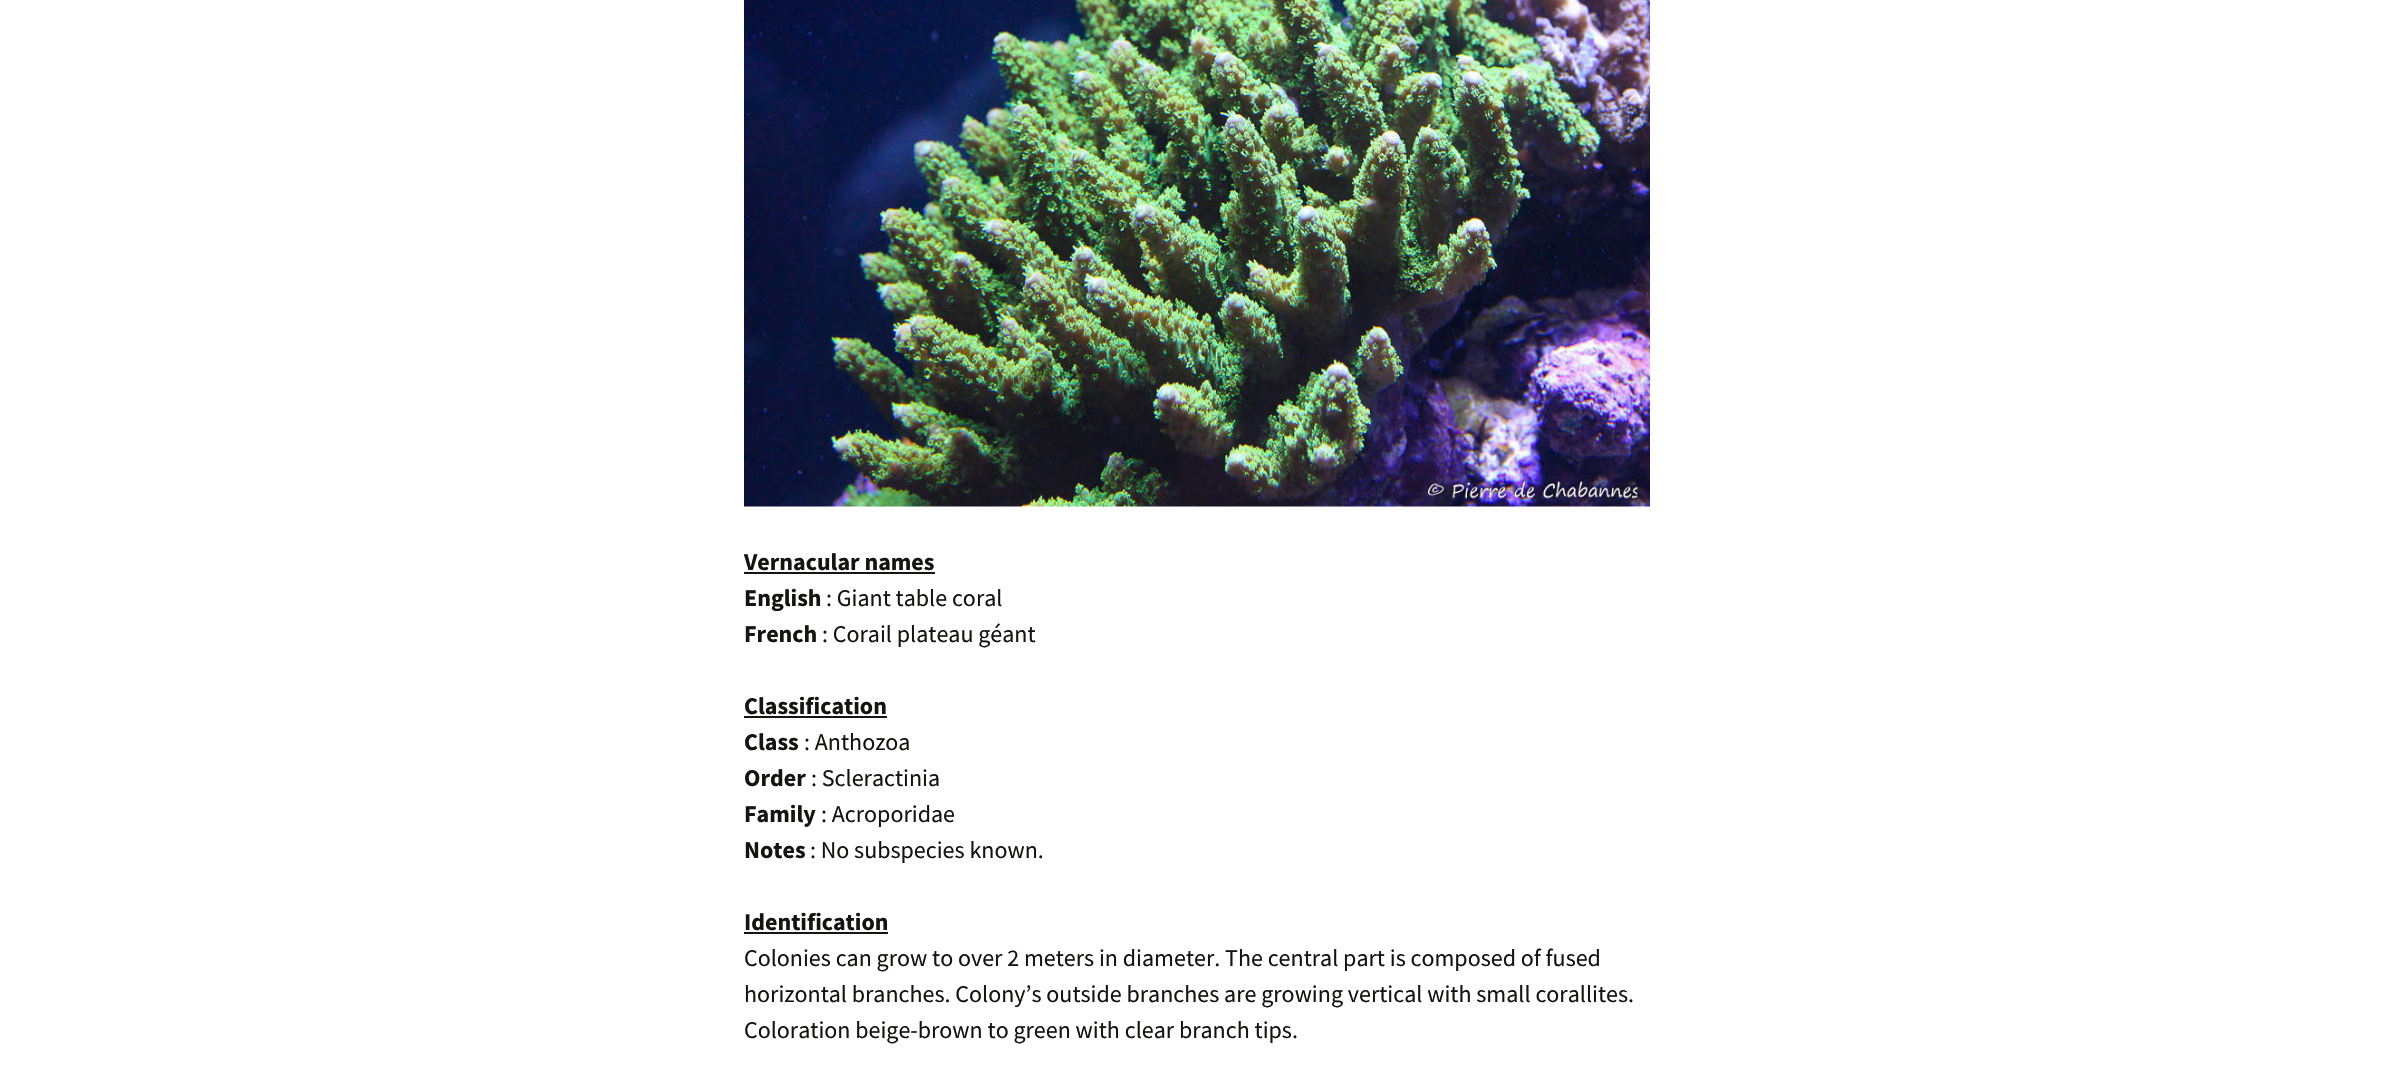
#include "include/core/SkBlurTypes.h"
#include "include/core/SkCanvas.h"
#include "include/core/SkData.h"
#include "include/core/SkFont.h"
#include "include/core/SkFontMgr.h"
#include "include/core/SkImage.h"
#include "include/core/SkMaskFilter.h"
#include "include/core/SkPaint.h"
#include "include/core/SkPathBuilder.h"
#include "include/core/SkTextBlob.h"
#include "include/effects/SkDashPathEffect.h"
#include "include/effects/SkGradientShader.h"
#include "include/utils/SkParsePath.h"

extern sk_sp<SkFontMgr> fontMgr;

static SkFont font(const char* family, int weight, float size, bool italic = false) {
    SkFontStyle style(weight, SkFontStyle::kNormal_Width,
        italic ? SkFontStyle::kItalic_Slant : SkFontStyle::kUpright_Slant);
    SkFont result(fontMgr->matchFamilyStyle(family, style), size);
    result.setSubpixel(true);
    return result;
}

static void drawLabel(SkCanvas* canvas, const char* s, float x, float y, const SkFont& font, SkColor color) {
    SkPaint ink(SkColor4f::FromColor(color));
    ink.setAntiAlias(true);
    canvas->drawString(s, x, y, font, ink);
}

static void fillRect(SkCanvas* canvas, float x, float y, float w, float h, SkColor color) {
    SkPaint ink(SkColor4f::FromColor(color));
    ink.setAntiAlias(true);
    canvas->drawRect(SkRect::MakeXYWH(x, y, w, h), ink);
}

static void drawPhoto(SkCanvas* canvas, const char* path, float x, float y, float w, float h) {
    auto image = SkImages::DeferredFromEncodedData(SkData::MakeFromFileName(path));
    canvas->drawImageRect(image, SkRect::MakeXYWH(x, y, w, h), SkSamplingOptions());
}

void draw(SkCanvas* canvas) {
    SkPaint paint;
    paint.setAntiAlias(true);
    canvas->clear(0xFFFFFFFF);
    drawPhoto(canvas, "assets/img1.png", 744, 0, 906, 507);
    SkFont font1 = font("Source Sans Pro", 700, 24);
    drawLabel(canvas, "Vernacular names", 744, 570, font1, 0xFF141412);
    fillRect(canvas, 744, 572, 191, 2, 0xFF141412);
    drawLabel(canvas, "English", 744, 606, font1, 0xFF141412);
    SkFont font2 = font("Source Sans Pro", 400, 24);
    drawLabel(canvas, ": Giant table coral", 826, 606, font2, 0xFF141412);
    drawLabel(canvas, "French", 744, 642, font1, 0xFF141412);
    drawLabel(canvas, ": Corail plateau géant", 822, 642, font2, 0xFF141412);
    drawLabel(canvas, "Classification", 744, 714, font1, 0xFF141412);
    fillRect(canvas, 744, 716, 143, 2, 0xFF141412);
    drawLabel(canvas, "Class", 744, 750, font1, 0xFF141412);
    drawLabel(canvas, ": Anthozoa", 804, 750, font2, 0xFF141412);
    drawLabel(canvas, "Order", 744, 786, font1, 0xFF141412);
    drawLabel(canvas, ": Scleractinia", 811, 786, font2, 0xFF141412);
    drawLabel(canvas, "Family", 744, 822, font1, 0xFF141412);
    drawLabel(canvas, ": Acroporidae", 821, 822, font2, 0xFF141412);
    drawLabel(canvas, "Notes", 744, 858, font1, 0xFF141412);
    drawLabel(canvas, ": No subspecies known.", 810, 858, font2, 0xFF141412);
    drawLabel(canvas, "Identification", 744, 930, font1, 0xFF141412);
    fillRect(canvas, 744, 932, 144, 2, 0xFF141412);
    drawLabel(canvas, "Colonies can grow to over 2 meters in diameter. The central part is composed of fused", 744, 966, font2, 0xFF141412);
    drawLabel(canvas, "horizontal branches. Colony’s outside branches are growing vertical with small corallites.", 744, 1002, font2, 0xFF141412);
    drawLabel(canvas, "Coloration beige-brown to green with clear branch tips.", 744, 1038, font2, 0xFF141412);
}
